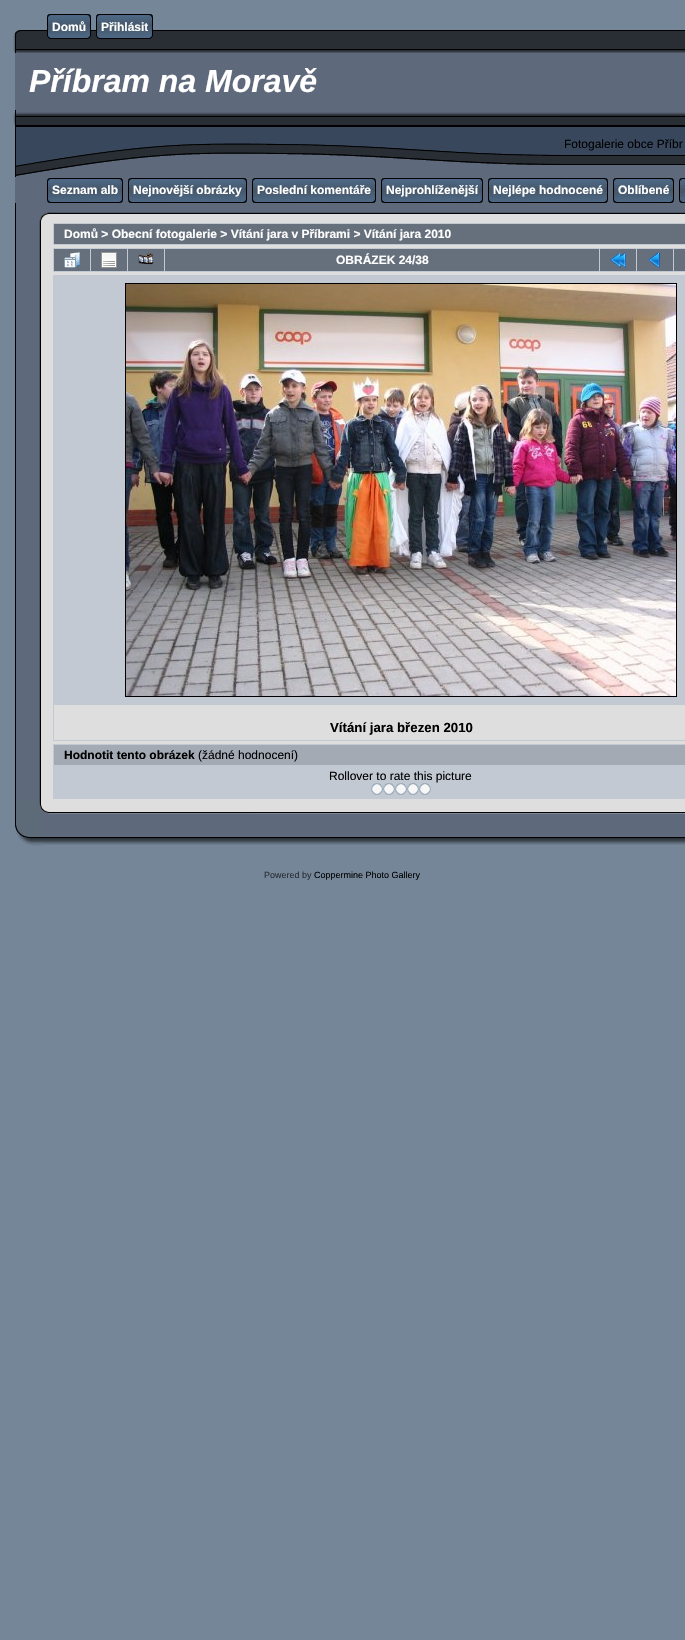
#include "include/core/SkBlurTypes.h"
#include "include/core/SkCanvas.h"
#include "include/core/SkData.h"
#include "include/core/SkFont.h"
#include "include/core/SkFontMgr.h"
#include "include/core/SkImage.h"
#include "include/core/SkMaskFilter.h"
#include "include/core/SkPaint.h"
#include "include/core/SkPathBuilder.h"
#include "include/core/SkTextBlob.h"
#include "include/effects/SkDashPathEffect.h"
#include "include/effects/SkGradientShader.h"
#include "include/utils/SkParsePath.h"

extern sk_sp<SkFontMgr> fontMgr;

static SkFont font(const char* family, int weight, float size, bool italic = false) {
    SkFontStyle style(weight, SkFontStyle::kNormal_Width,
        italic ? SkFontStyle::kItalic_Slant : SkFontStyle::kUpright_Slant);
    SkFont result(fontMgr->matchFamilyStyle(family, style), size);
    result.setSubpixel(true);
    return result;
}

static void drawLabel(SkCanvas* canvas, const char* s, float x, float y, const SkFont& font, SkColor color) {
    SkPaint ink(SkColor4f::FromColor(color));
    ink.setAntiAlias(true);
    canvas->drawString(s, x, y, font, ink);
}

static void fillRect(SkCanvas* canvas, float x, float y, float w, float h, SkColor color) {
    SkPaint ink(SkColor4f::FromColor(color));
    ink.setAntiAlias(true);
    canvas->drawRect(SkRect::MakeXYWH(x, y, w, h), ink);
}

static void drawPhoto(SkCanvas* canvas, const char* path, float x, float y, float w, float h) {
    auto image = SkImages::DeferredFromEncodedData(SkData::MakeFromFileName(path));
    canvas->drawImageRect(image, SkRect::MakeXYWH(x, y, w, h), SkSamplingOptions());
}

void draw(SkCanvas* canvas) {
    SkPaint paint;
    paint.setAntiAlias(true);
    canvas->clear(0xFF758698);
    drawPhoto(canvas, "assets/img1.png", 42, 30, 643, 23);
    drawPhoto(canvas, "assets/img2.png", 47, 14, 5, 25);
    drawPhoto(canvas, "assets/img3.png", 52, 14, 34, 25);
    SkFont font1 = font("Liberation Sans", 700, 12);
    drawLabel(canvas, "Domů", 52, 31, font1, 0xFFFFFFFF);
    drawPhoto(canvas, "assets/img4.png", 86, 14, 5, 25);
    drawPhoto(canvas, "assets/img2.png", 96, 14, 5, 25);
    drawPhoto(canvas, "assets/img5.png", 101, 14, 47, 25);
    drawLabel(canvas, "Přihlásit", 101, 31, font1, 0xFFFFFFFF);
    drawPhoto(canvas, "assets/img4.png", 148, 14, 5, 25);
    drawPhoto(canvas, "assets/img6.png", 13, 30, 29, 23);
    fillRect(canvas, 15, 53, 670, 57, 0xFF5E697B);
    SkFont font2 = font("Liberation Sans", 700, 32, true);
    drawLabel(canvas, "Příbram na Moravě", 29, 92, font2, 0xFFFFFFFF);
    drawPhoto(canvas, "assets/img7.png", 13, 110, 547, 67);
    drawPhoto(canvas, "assets/img8.png", 560, 110, 125, 67);
    SkFont font3 = font("Liberation Sans", 400, 12);
    drawLabel(canvas, "Fotogalerie obce Příbr", 564, 148, font3, 0xFF000000);
    fillRect(canvas, 15, 177, 670, 26, 0xFF5E697B);
    drawPhoto(canvas, "assets/img9.png", 47, 178, 5, 25);
    drawPhoto(canvas, "assets/img10.png", 52, 178, 66, 25);
    drawLabel(canvas, "Seznam alb", 52, 194, font1, 0xFFFFFFFF);
    drawPhoto(canvas, "assets/img11.png", 118, 178, 5, 25);
    drawPhoto(canvas, "assets/img9.png", 128, 178, 5, 25);
    drawPhoto(canvas, "assets/img12.png", 133, 178, 109, 25);
    drawLabel(canvas, "Nejnovější obrázky", 133, 194, font1, 0xFFFFFFFF);
    drawPhoto(canvas, "assets/img11.png", 242, 178, 5, 25);
    drawPhoto(canvas, "assets/img9.png", 252, 178, 5, 25);
    drawPhoto(canvas, "assets/img13.png", 257, 178, 114, 25);
    drawLabel(canvas, "Poslední komentáře", 257, 194, font1, 0xFFFFFFFF);
    drawPhoto(canvas, "assets/img11.png", 371, 178, 5, 25);
    drawPhoto(canvas, "assets/img9.png", 381, 178, 5, 25);
    drawPhoto(canvas, "assets/img14.png", 386, 178, 92, 25);
    drawLabel(canvas, "Nejprohlíženější", 386, 194, font1, 0xFFFFFFFF);
    drawPhoto(canvas, "assets/img11.png", 478, 178, 5, 25);
    drawPhoto(canvas, "assets/img9.png", 488, 178, 5, 25);
    drawPhoto(canvas, "assets/img15.png", 493, 178, 110, 25);
    drawLabel(canvas, "Nejlépe hodnocené", 493, 194, font1, 0xFFFFFFFF);
    drawPhoto(canvas, "assets/img11.png", 603, 178, 5, 25);
    drawPhoto(canvas, "assets/img9.png", 613, 178, 5, 25);
    drawPhoto(canvas, "assets/img16.png", 618, 178, 51, 25);
    drawLabel(canvas, "Oblíbené", 618, 194, font1, 0xFFFFFFFF);
    drawPhoto(canvas, "assets/img11.png", 669, 178, 5, 25);
    drawPhoto(canvas, "assets/img9.png", 679, 178, 5, 25);
    drawPhoto(canvas, "assets/img17.png", 684, 178, 1, 25);
    drawPhoto(canvas, "assets/img18.png", 15, 203, 27, 18);
    drawPhoto(canvas, "assets/img19.png", 42, 203, 14, 18);
    drawPhoto(canvas, "assets/img20.png", 56, 203, 629, 18);
    drawPhoto(canvas, "assets/img21.png", 15, 221, 27, 580);
    fillRect(canvas, 42, 221, 643, 580, 0xFFDEDEDE);
    fillRect(canvas, 53, 223, 632, 22, 0xFFC2C9D3);
    fillRect(canvas, 54, 224, 631, 20, 0xFF66707C);
    drawLabel(canvas, "Domů > Obecní fotogalerie > Vítání jara v Příbrami > Vítání jara 2010", 64, 238, font1, 0xFFFFFFFF);
    fillRect(canvas, 53, 248, 632, 24, 0xFFC2C9D3);
    fillRect(canvas, 54, 249, 36, 22, 0xFF66707C);
    drawPhoto(canvas, "assets/img22.png", 64, 252, 16, 16);
    fillRect(canvas, 91, 249, 36, 22, 0xFF66707C);
    drawPhoto(canvas, "assets/img23.png", 101, 252, 16, 16);
    fillRect(canvas, 128, 249, 36, 22, 0xFF66707C);
    drawPhoto(canvas, "assets/img24.png", 138, 253, 16, 12);
    fillRect(canvas, 165, 249, 434, 22, 0xFF66707C);
    drawLabel(canvas, "OBRÁZEK 24/38", 336, 264, font1, 0xFFFFFFFF);
    fillRect(canvas, 600, 249, 36, 22, 0xFF66707C);
    drawPhoto(canvas, "assets/img25.png", 610, 252, 16, 16);
    fillRect(canvas, 637, 249, 36, 22, 0xFF66707C);
    drawPhoto(canvas, "assets/img26.png", 648, 252, 12, 16);
    fillRect(canvas, 674, 249, 11, 22, 0xFF66707C);
    fillRect(canvas, 53, 275, 632, 466, 0xFFC2C9D3);
    paint.setStroke(true);
    paint.setStrokeWidth(1);
    paint.setColor(0xFF000000);
    canvas->drawRect(SkRect::MakeXYWH(125.5f, 283.5f, 551, 413), paint);
    drawPhoto(canvas, "assets/img27.png", 126, 284, 550, 412);
    fillRect(canvas, 54, 705, 631, 35, 0xFFDEDEDE);
    SkFont font4 = font("Liberation Sans", 700, 13.25f);
    drawLabel(canvas, "Vítání jara březen 2010", 330, 732, font4, 0xFF000000);
    fillRect(canvas, 53, 744, 632, 55, 0xFFC2C9D3);
    fillRect(canvas, 54, 745, 631, 20, 0xFFA3AAB4);
    drawLabel(canvas, "Hodnotit tento obrázek", 64, 759, font1, 0xFF000000);
    drawLabel(canvas, "(žádné hodnocení)", 198, 759, font3, 0xFF000000);
    drawLabel(canvas, "Rollover to rate this picture", 329, 780, font3, 0xFF000000);
    drawPhoto(canvas, "assets/img28.png", 371, 783, 12, 12);
    drawPhoto(canvas, "assets/img28.png", 383, 783, 12, 12);
    drawPhoto(canvas, "assets/img28.png", 395, 783, 12, 12);
    drawPhoto(canvas, "assets/img28.png", 407, 783, 12, 12);
    drawPhoto(canvas, "assets/img28.png", 419, 783, 12, 12);
    drawPhoto(canvas, "assets/img29.png", 15, 801, 27, 45);
    drawPhoto(canvas, "assets/img30.png", 42, 801, 208, 44);
    drawPhoto(canvas, "assets/img31.png", 250, 801, 301, 44);
    drawPhoto(canvas, "assets/img32.png", 551, 801, 134, 44);
    SkFont font5 = font("Liberation Sans", 400, 9);
    drawLabel(canvas, "Powered by", 264, 878, font5, 0xFF292E34);
    drawLabel(canvas, "Coppermine Photo Gallery", 314, 878, font5, 0xFF000000);
}
